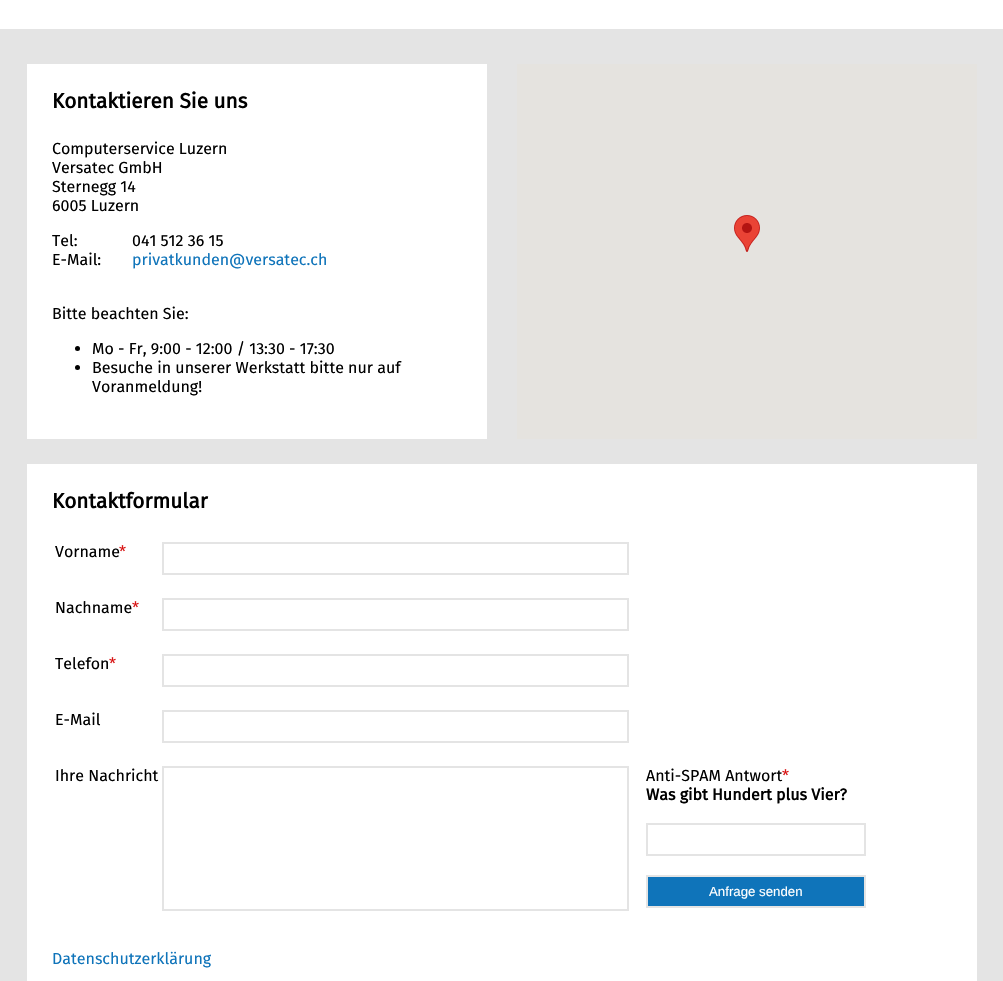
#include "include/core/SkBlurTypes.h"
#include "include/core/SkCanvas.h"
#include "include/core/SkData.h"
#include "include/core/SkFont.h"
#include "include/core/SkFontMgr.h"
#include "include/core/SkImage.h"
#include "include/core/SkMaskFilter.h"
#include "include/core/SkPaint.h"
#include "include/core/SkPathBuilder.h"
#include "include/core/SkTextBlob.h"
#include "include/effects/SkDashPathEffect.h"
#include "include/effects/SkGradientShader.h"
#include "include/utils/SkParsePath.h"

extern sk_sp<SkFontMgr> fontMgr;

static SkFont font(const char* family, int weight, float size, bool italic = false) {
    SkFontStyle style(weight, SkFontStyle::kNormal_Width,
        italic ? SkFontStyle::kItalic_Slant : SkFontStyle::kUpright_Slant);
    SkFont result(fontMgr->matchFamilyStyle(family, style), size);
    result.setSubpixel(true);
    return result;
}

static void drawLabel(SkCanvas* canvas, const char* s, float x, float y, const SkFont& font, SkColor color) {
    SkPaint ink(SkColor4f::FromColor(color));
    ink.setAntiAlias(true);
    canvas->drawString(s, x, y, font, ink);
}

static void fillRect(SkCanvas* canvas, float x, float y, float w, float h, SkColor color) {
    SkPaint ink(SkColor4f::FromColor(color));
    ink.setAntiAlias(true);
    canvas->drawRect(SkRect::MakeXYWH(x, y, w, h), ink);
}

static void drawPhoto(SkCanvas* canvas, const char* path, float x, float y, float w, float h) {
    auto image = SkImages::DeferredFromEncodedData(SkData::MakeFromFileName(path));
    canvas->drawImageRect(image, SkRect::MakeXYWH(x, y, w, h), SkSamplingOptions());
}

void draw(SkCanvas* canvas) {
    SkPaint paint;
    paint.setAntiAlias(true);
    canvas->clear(0xFFFFFFFF);
    fillRect(canvas, 0, 29, 1003, 952, 0xFFE4E4E4);
    fillRect(canvas, 27, 64, 460, 375, 0xFFFFFFFF);
    SkFont font1 = font("Fira Sans", 700, 20.75f);
    drawLabel(canvas, "Kontaktieren Sie uns", 52, 108, font1, 0xFF000000);
    SkFont font2 = font("Fira Sans", 400, 16);
    drawLabel(canvas, "Computerservice Luzern", 52, 154, font2, 0xFF000000);
    drawLabel(canvas, "Versatec GmbH", 52, 173, font2, 0xFF000000);
    drawLabel(canvas, "Sternegg 14", 52, 192, font2, 0xFF000000);
    drawLabel(canvas, "6005 Luzern", 52, 211, font2, 0xFF000000);
    drawLabel(canvas, "Tel:", 52, 246, font2, 0xFF000000);
    drawLabel(canvas, "E-Mail:", 52, 265, font2, 0xFF000000);
    drawLabel(canvas, "041 512 36 15", 132, 246, font2, 0xFF000000);
    drawLabel(canvas, "privatkunden@versatec.ch", 132, 265, font2, 0xFF0F74BA);
    drawLabel(canvas, "Bitte beachten Sie:", 52, 319, font2, 0xFF000000);
    paint.setColor(0xFF000000);
    canvas->drawCircle(77.5f, 348.5f, 2.5f, paint);
    drawLabel(canvas, "Mo - Fr, 9:00 - 12:00 / 13:30 - 17:30", 92, 354, font2, 0xFF000000);
    canvas->drawCircle(77.5f, 367.5f, 2.5f, paint);
    drawLabel(canvas, "Besuche in unserer Werkstatt bitte nur auf", 92, 373, font2, 0xFF000000);
    drawLabel(canvas, "Voranmeldung!", 92, 392, font2, 0xFF000000);
    fillRect(canvas, 517, 64, 460, 375, 0xFFE5E3DF);
    drawPhoto(canvas, "assets/img1.png", 734, 215, 26, 37);
    fillRect(canvas, 27, 464, 950, 517, 0xFFFFFFFF);
    drawLabel(canvas, "Kontaktformular", 52, 508, font1, 0xFF000000);
    drawLabel(canvas, "Vorname", 55, 557, font2, 0xFF000000);
    drawLabel(canvas, "*", 119, 557, font2, 0xFFD81414);
    paint.setStroke(true);
    paint.setStrokeWidth(2);
    paint.setColor(0xFFE4E4E4);
    canvas->drawRect(SkRect::MakeXYWH(163, 543, 465, 31), paint);
    drawLabel(canvas, "Nachname", 55, 613, font2, 0xFF000000);
    drawLabel(canvas, "*", 132, 613, font2, 0xFFD81414);
    canvas->drawRect(SkRect::MakeXYWH(163, 599, 465, 31), paint);
    drawLabel(canvas, "Telefon", 55, 669, font2, 0xFF000000);
    drawLabel(canvas, "*", 109, 669, font2, 0xFFD81414);
    canvas->drawRect(SkRect::MakeXYWH(163, 655, 465, 31), paint);
    drawLabel(canvas, "E-Mail", 55, 725, font2, 0xFF000000);
    canvas->drawRect(SkRect::MakeXYWH(163, 711, 465, 31), paint);
    drawLabel(canvas, "Ihre Nachricht", 55, 781, font2, 0xFF000000);
    canvas->drawRect(SkRect::MakeXYWH(163, 767, 465, 143), paint);
    drawLabel(canvas, "Anti-SPAM Antwort", 646, 781, font2, 0xFF000000);
    drawLabel(canvas, "*", 782, 781, font2, 0xFFD81414);
    SkFont font3 = font("Fira Sans", 700, 16);
    drawLabel(canvas, "Was gibt Hundert plus Vier?", 646, 800, font3, 0xFF000000);
    canvas->drawRect(SkRect::MakeXYWH(647, 824, 218, 31), paint);
    paint.setStroke(false);
    paint.setColor(0xFF0F74BA);
    canvas->drawRect(SkRect::MakeXYWH(647, 876, 218, 31), paint);
    paint.setStroke(true);
    paint.setColor(0xFFE4E4E4);
    canvas->drawRect(SkRect::MakeXYWH(647, 876, 218, 31), paint);
    SkFont font4 = font("Liberation Sans", 400, 13.25f);
    drawLabel(canvas, "Anfrage senden", 709, 896, font4, 0xFFFFFFFF);
    drawLabel(canvas, "Datenschutzerklärung", 52, 964, font2, 0xFF0F74BA);
}
